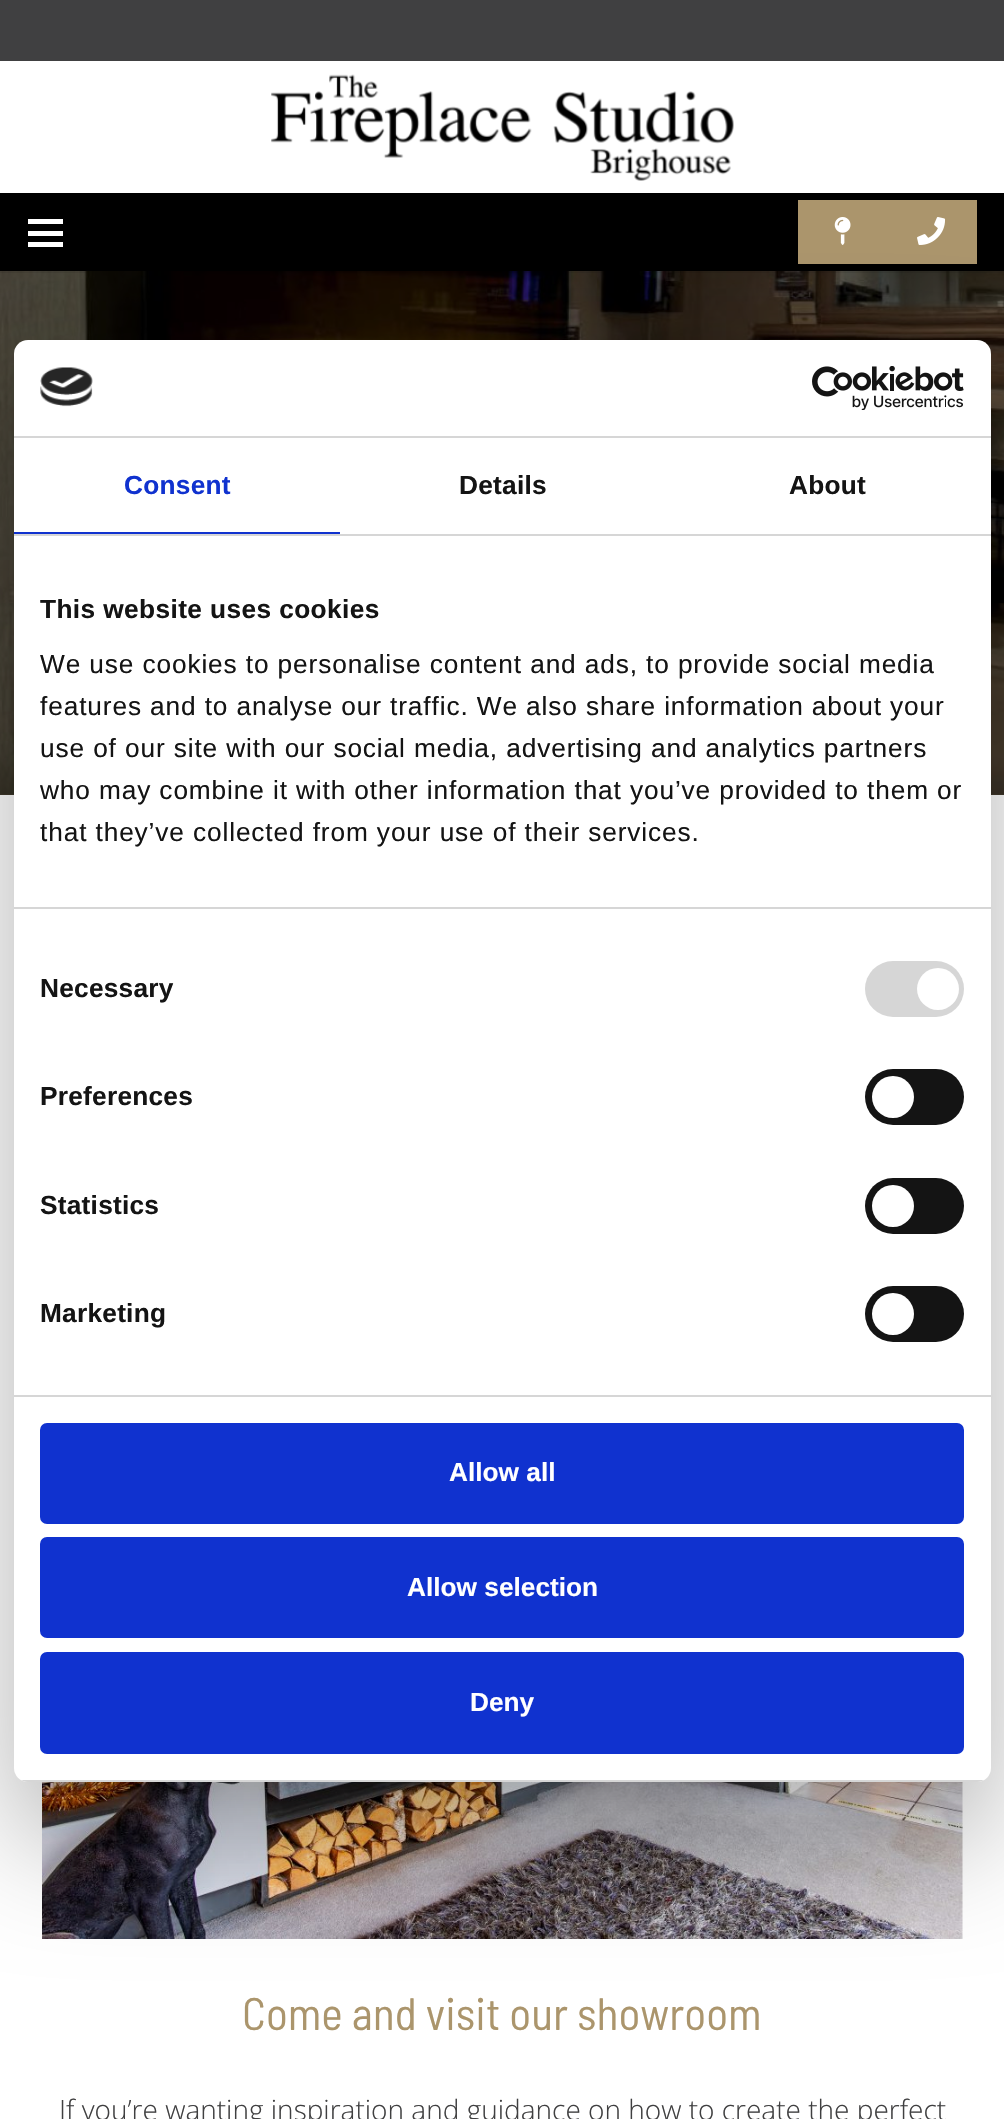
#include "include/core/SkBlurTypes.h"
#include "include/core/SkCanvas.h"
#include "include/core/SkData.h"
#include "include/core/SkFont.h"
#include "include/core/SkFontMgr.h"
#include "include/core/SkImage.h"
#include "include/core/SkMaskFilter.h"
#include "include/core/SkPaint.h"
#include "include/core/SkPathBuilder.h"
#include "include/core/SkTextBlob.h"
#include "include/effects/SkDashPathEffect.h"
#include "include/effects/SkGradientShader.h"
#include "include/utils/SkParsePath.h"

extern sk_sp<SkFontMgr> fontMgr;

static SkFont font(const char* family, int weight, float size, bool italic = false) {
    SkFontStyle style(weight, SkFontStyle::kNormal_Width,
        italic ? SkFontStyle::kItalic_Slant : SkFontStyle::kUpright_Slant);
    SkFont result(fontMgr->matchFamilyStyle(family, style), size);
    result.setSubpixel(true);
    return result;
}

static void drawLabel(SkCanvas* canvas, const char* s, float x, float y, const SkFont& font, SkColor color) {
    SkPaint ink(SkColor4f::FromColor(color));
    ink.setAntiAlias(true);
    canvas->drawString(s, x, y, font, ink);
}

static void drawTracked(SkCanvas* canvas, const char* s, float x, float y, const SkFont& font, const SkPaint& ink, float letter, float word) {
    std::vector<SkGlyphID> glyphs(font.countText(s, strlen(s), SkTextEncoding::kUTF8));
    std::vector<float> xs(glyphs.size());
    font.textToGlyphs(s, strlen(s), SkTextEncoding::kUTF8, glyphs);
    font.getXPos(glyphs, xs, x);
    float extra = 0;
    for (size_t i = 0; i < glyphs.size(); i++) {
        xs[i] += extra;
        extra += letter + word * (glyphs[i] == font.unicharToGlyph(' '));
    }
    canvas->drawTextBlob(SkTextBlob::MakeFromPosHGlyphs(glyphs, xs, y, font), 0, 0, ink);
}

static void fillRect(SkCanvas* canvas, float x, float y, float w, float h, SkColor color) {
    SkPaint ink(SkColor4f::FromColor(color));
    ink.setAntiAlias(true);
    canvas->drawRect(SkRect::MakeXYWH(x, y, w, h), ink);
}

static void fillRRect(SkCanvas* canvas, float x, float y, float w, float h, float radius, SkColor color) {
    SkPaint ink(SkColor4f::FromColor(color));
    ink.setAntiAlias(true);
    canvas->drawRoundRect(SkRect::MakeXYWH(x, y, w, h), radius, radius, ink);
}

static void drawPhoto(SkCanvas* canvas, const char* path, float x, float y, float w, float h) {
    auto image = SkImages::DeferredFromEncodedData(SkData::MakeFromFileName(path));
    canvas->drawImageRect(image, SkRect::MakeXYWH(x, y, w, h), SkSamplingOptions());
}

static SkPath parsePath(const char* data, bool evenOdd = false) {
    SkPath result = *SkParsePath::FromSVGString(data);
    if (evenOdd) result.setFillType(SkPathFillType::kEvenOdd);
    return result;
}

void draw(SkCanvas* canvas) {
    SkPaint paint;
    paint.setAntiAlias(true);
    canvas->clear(0xFFFFFFFF);
    fillRect(canvas, 0, 0, 1004, 61, 0xFF404041);
    drawPhoto(canvas, "assets/img1.png", 271, 74, 463, 107);
    fillRect(canvas, 0, 794, 1004, 1, 0xFF443C2B);
    drawPhoto(canvas, "assets/img4.png", 0, 271, 1004, 524);
    paint.setColor(0x14000000);
    canvas->drawPath(parsePath("M0 271V273H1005V194H1004V271Z"), paint);
    fillRect(canvas, 0, 193, 1004, 78, 0xFF000000);
    fillRect(canvas, 28, 231, 35, 5, 0xFFFFFFFF);
    fillRect(canvas, 28, 219, 35, 5, 0xFFFFFFFF);
    fillRect(canvas, 28, 242, 35, 5, 0xFFFFFFFF);
    fillRect(canvas, 798, 200, 179, 64, 0xFFAB956C);
    drawPhoto(canvas, "assets/img2.png", 834, 217, 17, 28);
    drawPhoto(canvas, "assets/img3.png", 917, 217, 29, 28);
    drawPhoto(canvas, "assets/img7.png", 42, 1782, 921, 157);
    paint.setColor(0x4D000000);
    paint.setMaskFilter(SkMaskFilter::MakeBlur(kNormal_SkBlurStyle, 59.5f));
    canvas->drawRoundRect(SkRect::MakeXYWH(14, 396, 977, 1442), 14, 14, paint);
    paint.setMaskFilter(nullptr);
    fillRRect(canvas, 14, 340, 977, 1442, 14, 0xFFFFFFFF);
    fillRect(canvas, 14, 436, 977, 2, 0xFFD6D6D6);
    drawPhoto(canvas, "assets/img5.png", 40, 367, 53, 40);
    drawPhoto(canvas, "assets/img6.png", 812, 366, 152, 44);
    fillRect(canvas, 14, 534, 977, 2, 0xFFD6D6D6);
    fillRect(canvas, 14, 532, 326, 2, 0xFF1032CF);
    SkFont font1 = font("Liberation Sans", 700, 26.25f);
    paint.setColor(0xFF1032CF);
    drawTracked(canvas, "Consent", 124, 494, font1, paint, 0.25f, 0);
    paint.setColor(0xFF141414);
    drawTracked(canvas, "Details", 459, 494, font1, paint, 0.25f, 0);
    drawTracked(canvas, "About", 789, 494, font1, paint, 0.25f, 0);
    fillRect(canvas, 14, 907, 977, 2, 0xFFD6D6D6);
    drawTracked(canvas, "This website uses cookies", 40, 618, font1, paint, 0.4f, 0);
    SkFont font2 = font("Liberation Sans", 400, 26.25f);
    drawTracked(canvas, "We use cookies to personalise content and ads, to provide social media", 40, 673, font2, paint, 0.88f, 0);
    drawTracked(canvas, "features and to analyse our traffic. We also share information about your", 40, 715, font2, paint, 0.88f, 0);
    drawTracked(canvas, "use of our site with our social media, advertising and analytics partners", 40, 757, font2, paint, 0.88f, 0);
    drawTracked(canvas, "who may combine it with other information that you’ve provided to them or", 40, 799, font2, paint, 0.88f, 0);
    drawTracked(canvas, "that they’ve collected from your use of their services.", 40, 841, font2, paint, 0.88f, 0);
    fillRect(canvas, 14, 1395, 977, 2, 0xFFD6D6D6);
    drawTracked(canvas, "Necessary", 40, 997, font1, paint, 0.25f, 0);
    fillRRect(canvas, 865, 961, 99, 56, 28, 0xFFD6D6D6);
    paint.setColor(0xFFFFFFFF);
    canvas->drawCircle(938, 989, 21, paint);
    paint.setColor(0xFF141414);
    drawTracked(canvas, "Preferences", 40, 1105, font1, paint, 0.25f, 0);
    fillRRect(canvas, 865, 1069, 99, 56, 28, 0xFF141414);
    paint.setColor(0xFFFFFFFF);
    canvas->drawCircle(893, 1097, 21, paint);
    paint.setColor(0xFF141414);
    drawTracked(canvas, "Statistics", 40, 1214, font1, paint, 0.25f, 0);
    fillRRect(canvas, 865, 1178, 99, 56, 28, 0xFF141414);
    paint.setColor(0xFFFFFFFF);
    canvas->drawCircle(893, 1206, 21, paint);
    paint.setColor(0xFF141414);
    drawTracked(canvas, "Marketing", 40, 1322, font1, paint, 0.25f, 0);
    fillRRect(canvas, 865, 1286, 99, 56, 28, 0xFF141414);
    paint.setColor(0xFFFFFFFF);
    canvas->drawCircle(893, 1314, 21, paint);
    canvas->save();
    canvas->clipPath(parsePath("M28 340H977C984.5 340 991 346.5 991 354V1768C991 1775.5 984.5 1782 977 1782H28C20.5 1782 14 1775.5 14 1768V354C14 346.5 20.5 340 28 340Z"), true);
    fillRect(canvas, 14, 1780, 977, 2, 0xFFD6D6D6);
    canvas->restore();
    paint.setColor(0xFF1032CF);
    canvas->drawRoundRect(SkRect::MakeXYWH(42, 1425, 920, 97), 5, 5, paint);
    paint.setStroke(true);
    paint.setStrokeWidth(4);
    canvas->drawRoundRect(SkRect::MakeXYWH(42, 1425, 920, 97), 5, 5, paint);
    drawLabel(canvas, "Allow all", 449, 1481, font1, 0xFFFFFFFF);
    paint.setStroke(false);
    canvas->drawRoundRect(SkRect::MakeXYWH(42, 1539, 920, 97), 5, 5, paint);
    paint.setStroke(true);
    canvas->drawRoundRect(SkRect::MakeXYWH(42, 1539, 920, 97), 5, 5, paint);
    drawLabel(canvas, "Allow selection", 407, 1596, font1, 0xFFFFFFFF);
    paint.setStroke(false);
    canvas->drawRoundRect(SkRect::MakeXYWH(42, 1654, 920, 98), 5, 5, paint);
    paint.setStroke(true);
    canvas->drawRoundRect(SkRect::MakeXYWH(42, 1654, 920, 98), 5, 5, paint);
    drawLabel(canvas, "Deny", 470, 1711, font1, 0xFFFFFFFF);
    SkFont font3 = font("Barlow Semi Condensed", 400, 45.5f);
    drawLabel(canvas, "Come and visit our showroom", 242, 2030, font3, 0xFFAB956C);
    SkFont font4 = font("Open Sans", 300, 28);
    drawLabel(canvas, "If you’re wanting inspiration and guidance on how to create the perfect", 59, 2120, font4, 0xFF404041);
}
